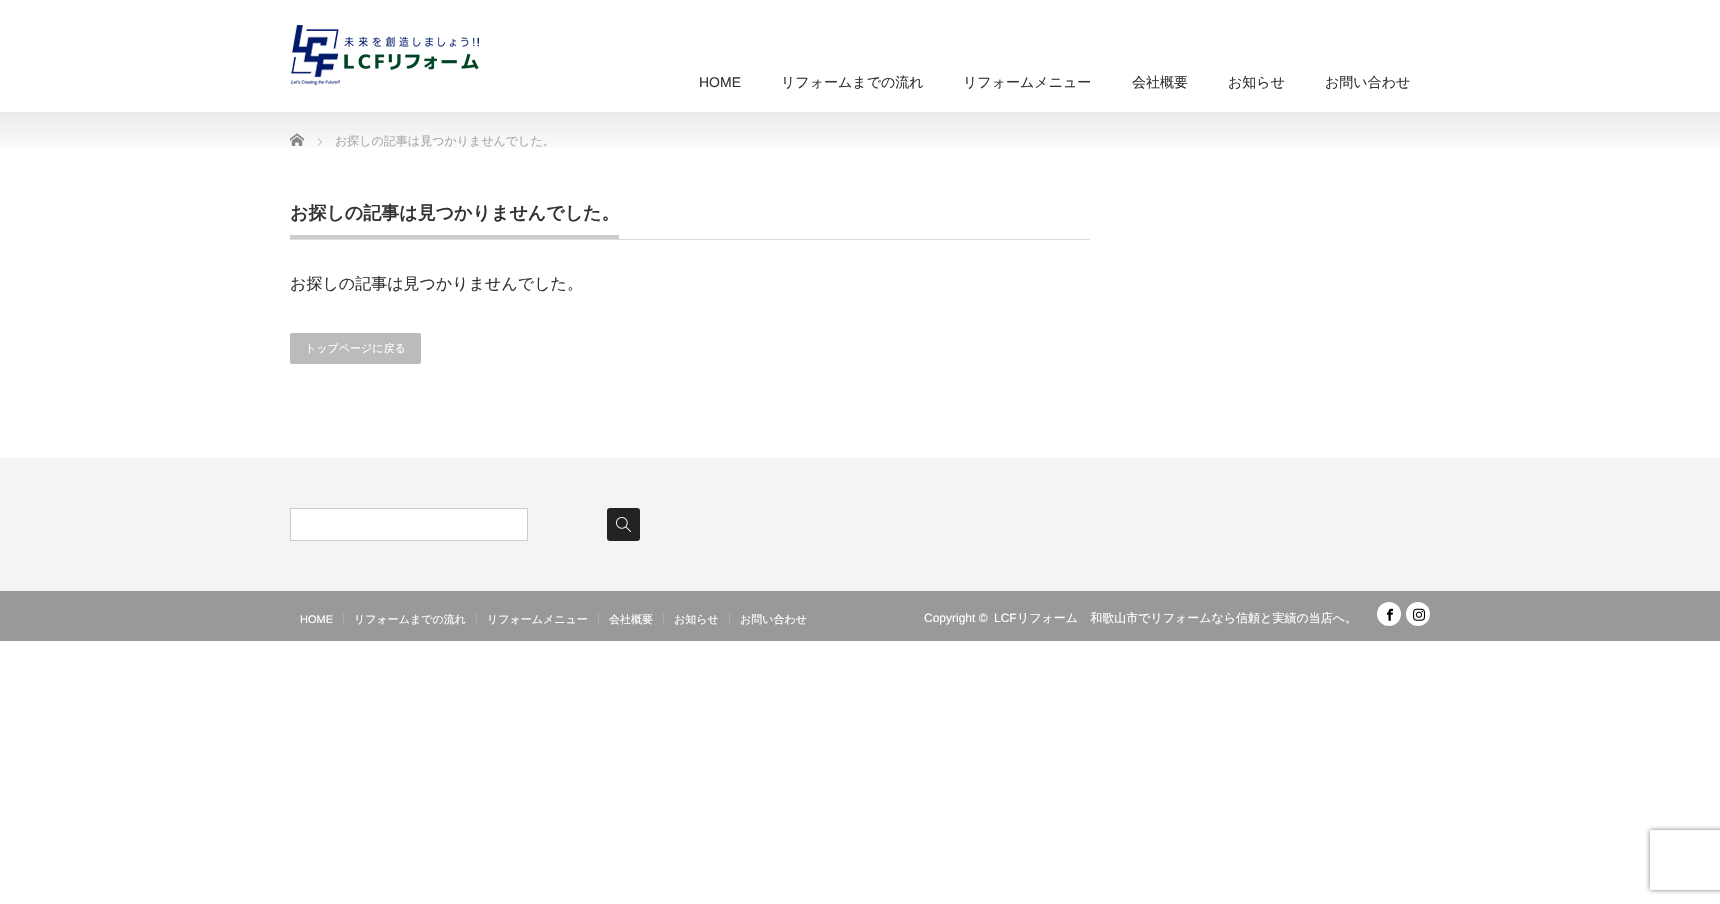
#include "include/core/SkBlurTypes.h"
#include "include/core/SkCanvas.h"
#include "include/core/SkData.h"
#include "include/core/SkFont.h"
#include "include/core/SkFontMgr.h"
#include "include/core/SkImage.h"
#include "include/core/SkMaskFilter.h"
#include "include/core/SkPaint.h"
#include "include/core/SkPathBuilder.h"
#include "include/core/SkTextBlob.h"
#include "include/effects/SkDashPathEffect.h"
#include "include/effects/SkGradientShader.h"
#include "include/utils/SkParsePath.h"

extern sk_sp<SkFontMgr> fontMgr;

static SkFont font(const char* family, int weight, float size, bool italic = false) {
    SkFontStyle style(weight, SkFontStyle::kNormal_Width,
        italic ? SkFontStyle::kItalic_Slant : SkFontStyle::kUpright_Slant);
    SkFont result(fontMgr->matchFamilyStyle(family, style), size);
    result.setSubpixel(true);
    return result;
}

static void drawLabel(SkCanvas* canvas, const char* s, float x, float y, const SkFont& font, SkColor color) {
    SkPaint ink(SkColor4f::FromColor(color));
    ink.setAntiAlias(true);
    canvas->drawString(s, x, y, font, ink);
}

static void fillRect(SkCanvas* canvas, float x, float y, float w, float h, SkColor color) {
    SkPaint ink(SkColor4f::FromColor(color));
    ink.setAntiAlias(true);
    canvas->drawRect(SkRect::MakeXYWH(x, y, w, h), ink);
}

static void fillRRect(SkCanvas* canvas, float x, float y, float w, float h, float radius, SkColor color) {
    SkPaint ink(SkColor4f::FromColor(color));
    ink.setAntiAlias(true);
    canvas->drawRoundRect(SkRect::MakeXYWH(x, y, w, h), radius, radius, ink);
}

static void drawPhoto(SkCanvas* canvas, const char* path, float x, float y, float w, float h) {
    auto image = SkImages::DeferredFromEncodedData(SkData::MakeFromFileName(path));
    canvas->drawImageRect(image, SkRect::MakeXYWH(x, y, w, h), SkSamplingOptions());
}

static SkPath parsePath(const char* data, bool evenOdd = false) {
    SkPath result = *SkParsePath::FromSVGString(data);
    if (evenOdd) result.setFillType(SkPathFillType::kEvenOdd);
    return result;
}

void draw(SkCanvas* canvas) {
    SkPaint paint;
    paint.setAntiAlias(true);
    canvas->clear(0xFFFFFFFF);
    drawPhoto(canvas, "assets/img1.png", 291, 25, 188, 60);
    SkFont font1 = font("Liberation Sans", 400, 14);
    drawLabel(canvas, "HOME", 699, 87, font1, 0xFF333333);
    SkFont font2 = font("WenQuanYi Zen Hei", 500, 14);
    drawLabel(canvas, "リフォームまでの流れ", 781, 87, font2, 0xFF333333);
    drawLabel(canvas, "リフォームメニュー", 963, 87, font2, 0xFF333333);
    drawLabel(canvas, "会社概要", 1132, 87, font2, 0xFF333333);
    drawLabel(canvas, "お知らせ", 1228, 87, font2, 0xFF333333);
    drawLabel(canvas, "お問い合わせ", 1325, 87, font2, 0xFF333333);
    drawPhoto(canvas, "assets/img2.png", 0, 112, 1720, 36);
    drawPhoto(canvas, "assets/img3.png", 290, 133, 14, 13);
    drawPhoto(canvas, "assets/img4.png", 317, 138, 5, 8);
    SkFont font3 = font("WenQuanYi Zen Hei", 500, 12);
    drawLabel(canvas, "お探しの記事は見つかりませんでした。", 335, 145, font3, 0xFFAAAAAA);
    fillRect(canvas, 290, 239, 800, 1, 0xFFDDDDDD);
    fillRect(canvas, 290, 235, 329, 4, 0xFFCCCCCC);
    SkFont font4 = font("WenQuanYi Zen Hei", 700, 18);
    drawLabel(canvas, "お探しの記事は見つかりませんでした。", 290, 219, font4, 0xFF333333);
    SkFont font5 = font("WenQuanYi Zen Hei", 500, 16);
    drawLabel(canvas, "お探しの記事は見つかりませんでした。", 290, 289, font5, 0xFF333333);
    fillRRect(canvas, 290, 333, 131, 31, 2, 0xFFBBBBBB);
    SkFont font6 = font("WenQuanYi Zen Hei", 500, 11);
    drawLabel(canvas, "トップページに戻る", 305, 352, font6, 0xFFFFFFFF);
    fillRect(canvas, 0, 458, 1720, 133, 0xFFF4F4F4);
    paint.setColor(0xFFFFFFFF);
    canvas->drawRect(SkRect::MakeXYWH(290.5f, 508.5f, 237, 32), paint);
    paint.setStroke(true);
    paint.setStrokeWidth(1);
    paint.setColor(0xFFCCCCCC);
    canvas->drawRect(SkRect::MakeXYWH(290.5f, 508.5f, 237, 32), paint);
    fillRRect(canvas, 607, 508, 33, 33, 3, 0xFF222222);
    drawPhoto(canvas, "assets/img5.png", 616, 517, 15, 15);
    fillRect(canvas, 0, 591, 1720, 50, 0xFF999999);
    SkFont font7 = font("Liberation Sans", 400, 11);
    drawLabel(canvas, "HOME", 300, 623, font7, 0xFFFFFFFF);
    fillRect(canvas, 343, 613, 1, 12, 0xFFAAAAAA);
    drawLabel(canvas, "リフォームまでの流れ", 354, 623, font6, 0xFFFFFFFF);
    fillRect(canvas, 476, 613, 1, 12, 0xFFAAAAAA);
    drawLabel(canvas, "リフォームメニュー", 487, 623, font6, 0xFFFFFFFF);
    fillRect(canvas, 598, 613, 1, 12, 0xFFAAAAAA);
    drawLabel(canvas, "会社概要", 609, 623, font6, 0xFFFFFFFF);
    fillRect(canvas, 663, 613, 1, 12, 0xFFAAAAAA);
    drawLabel(canvas, "お知らせ", 674, 623, font6, 0xFFFFFFFF);
    fillRect(canvas, 729, 613, 1, 12, 0xFFAAAAAA);
    drawLabel(canvas, "お問い合わせ", 740, 623, font6, 0xFFFFFFFF);
    SkFont font8 = font("Liberation Sans", 400, 12);
    drawLabel(canvas, "Copyright ©", 924, 622, font8, 0xFFFFFFFF);
    drawLabel(canvas, "LCF", 994, 622, font8, 0xFFFFFFFF);
    drawLabel(canvas, "リフォーム　和歌山市でリフォームなら信頼と実績の当店へ。", 1017, 622, font3, 0xFFFFFFFF);
    paint.setStroke(false);
    paint.setColor(0xFFFFFFFF);
    canvas->drawCircle(1389, 614, 12, paint);
    drawPhoto(canvas, "assets/img6.png", 1387, 608, 6, 13);
    canvas->drawCircle(1418, 614, 12, paint);
    drawPhoto(canvas, "assets/img7.png", 1413, 608, 12, 13);
    canvas->save();
    canvas->clipPath(parsePath("M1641 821H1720V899H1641ZM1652 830H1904C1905 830 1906 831 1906 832V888C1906 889 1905 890 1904 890H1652C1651 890 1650 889 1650 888V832C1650 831 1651 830 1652 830Z", true), true);
    paint.setColor(0xFF808080);
    paint.setMaskFilter(SkMaskFilter::MakeBlur(kNormal_SkBlurStyle, 2.5f));
    canvas->drawRoundRect(SkRect::MakeXYWH(1650, 830, 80, 60), 2, 2, paint);
    paint.setMaskFilter(nullptr);
    canvas->restore();
}
